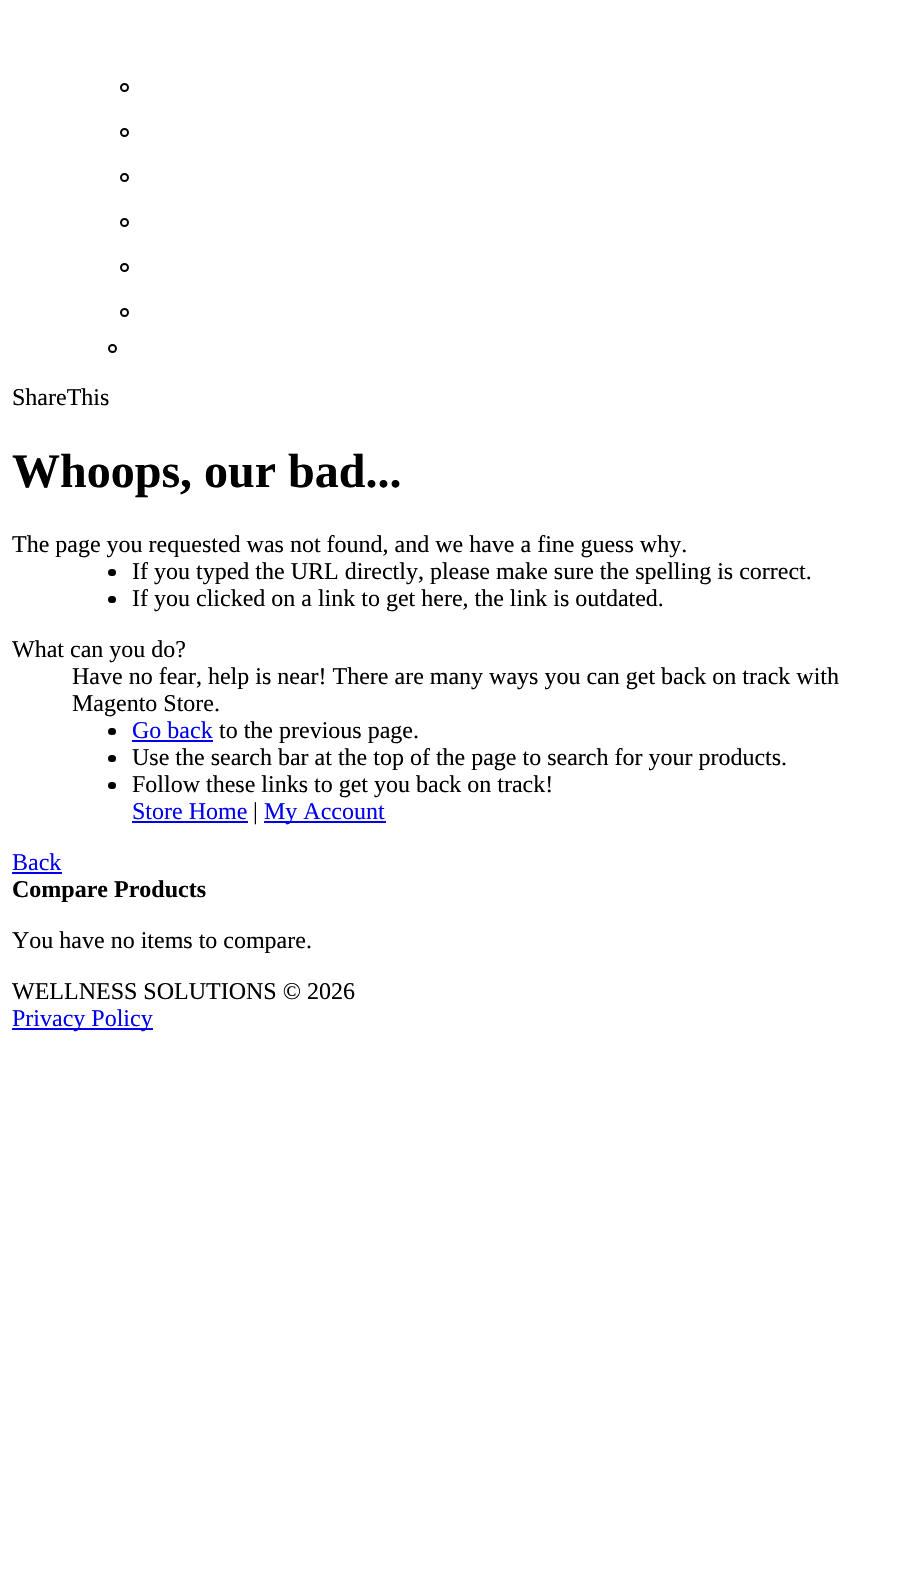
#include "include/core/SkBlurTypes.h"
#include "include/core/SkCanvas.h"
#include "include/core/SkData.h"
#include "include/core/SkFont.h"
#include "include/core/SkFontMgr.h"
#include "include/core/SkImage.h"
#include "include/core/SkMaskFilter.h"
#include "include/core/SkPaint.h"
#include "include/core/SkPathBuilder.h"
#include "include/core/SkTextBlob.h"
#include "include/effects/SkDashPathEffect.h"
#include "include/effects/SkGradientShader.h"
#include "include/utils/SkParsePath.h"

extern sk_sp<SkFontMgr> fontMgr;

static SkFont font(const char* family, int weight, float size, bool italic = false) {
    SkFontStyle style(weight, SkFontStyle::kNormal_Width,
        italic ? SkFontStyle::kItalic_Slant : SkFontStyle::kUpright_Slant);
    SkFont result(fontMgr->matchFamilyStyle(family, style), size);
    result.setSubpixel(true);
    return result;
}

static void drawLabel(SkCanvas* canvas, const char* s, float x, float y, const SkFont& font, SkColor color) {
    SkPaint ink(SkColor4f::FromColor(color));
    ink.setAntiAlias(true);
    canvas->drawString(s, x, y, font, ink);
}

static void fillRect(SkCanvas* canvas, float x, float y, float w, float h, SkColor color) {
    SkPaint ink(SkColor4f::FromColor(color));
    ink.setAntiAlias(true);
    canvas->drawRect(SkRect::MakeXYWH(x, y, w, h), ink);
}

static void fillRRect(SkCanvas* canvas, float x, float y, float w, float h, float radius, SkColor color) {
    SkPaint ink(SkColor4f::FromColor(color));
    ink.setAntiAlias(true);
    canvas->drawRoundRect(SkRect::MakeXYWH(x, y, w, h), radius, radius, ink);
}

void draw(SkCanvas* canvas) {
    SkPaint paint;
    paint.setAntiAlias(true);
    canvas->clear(0xFFFFFFFF);
    paint.setStroke(true);
    paint.setStrokeWidth(2);
    paint.setColor(0xFF000000);
    canvas->drawCircle(124.5f, 87.5f, 3.5f, paint);
    canvas->drawCircle(124.5f, 132.5f, 3.5f, paint);
    canvas->drawCircle(124.5f, 177.5f, 3.5f, paint);
    canvas->drawCircle(124.5f, 222.5f, 3.5f, paint);
    canvas->drawCircle(124.5f, 267.5f, 3.5f, paint);
    canvas->drawCircle(124.5f, 312.5f, 3.5f, paint);
    canvas->drawCircle(112.5f, 348.5f, 3.5f, paint);
    SkFont font1 = font("Liberation Serif", 400, 24);
    drawLabel(canvas, "ShareThis", 12, 405, font1, 0xFF000000);
    SkFont font2 = font("Liberation Serif", 700, 48);
    drawLabel(canvas, "Whoops, our bad...", 12, 487, font2, 0xFF000000);
    drawLabel(canvas, "The page you requested was not found, and we have a fine guess why.", 12, 552, font1, 0xFF000000);
    fillRRect(canvas, 108, 569, 8, 7, 3.5f, 0xFF000000);
    drawLabel(canvas, "If you typed the URL directly, please make sure the spelling is correct.", 132, 579, font1, 0xFF000000);
    fillRRect(canvas, 108, 596, 8, 7, 3.5f, 0xFF000000);
    drawLabel(canvas, "If you clicked on a link to get here, the link is outdated.", 132, 606, font1, 0xFF000000);
    drawLabel(canvas, "What can you do?", 12, 657, font1, 0xFF000000);
    drawLabel(canvas, "Have no fear, help is near! There are many ways you can get back on track with", 72, 684, font1, 0xFF000000);
    drawLabel(canvas, "Magento Store.", 72, 711, font1, 0xFF000000);
    fillRRect(canvas, 108, 728, 8, 7, 3.5f, 0xFF000000);
    drawLabel(canvas, "Go back", 132, 738, font1, 0xFF0000EE);
    fillRect(canvas, 132, 740, 81, 2, 0xFF0000EE);
    drawLabel(canvas, "to the previous page.", 219, 738, font1, 0xFF000000);
    fillRRect(canvas, 108, 755, 8, 7, 3.5f, 0xFF000000);
    drawLabel(canvas, "Use the search bar at the top of the page to search for your products.", 132, 765, font1, 0xFF000000);
    fillRRect(canvas, 108, 782, 8, 7, 3.5f, 0xFF000000);
    drawLabel(canvas, "Follow these links to get you back on track!", 132, 792, font1, 0xFF000000);
    drawLabel(canvas, "Store Home", 132, 819, font1, 0xFF0000EE);
    fillRect(canvas, 132, 821, 116, 2, 0xFF0000EE);
    drawLabel(canvas, "|", 253, 819, font1, 0xFF000000);
    fillRect(canvas, 264, 821, 122, 2, 0xFF0000EE);
    drawLabel(canvas, "My Account", 264, 819, font1, 0xFF0000EE);
    drawLabel(canvas, "Back", 12, 870, font1, 0xFF0000EE);
    fillRect(canvas, 12, 872, 50, 2, 0xFF0000EE);
    SkFont font3 = font("Liberation Serif", 700, 24);
    drawLabel(canvas, "Compare Products", 12, 897, font3, 0xFF000000);
    drawLabel(canvas, "You have no items to compare.", 12, 948, font1, 0xFF000000);
    drawLabel(canvas, "WELLNESS SOLUTIONS © 2026", 12, 999, font1, 0xFF000000);
    fillRect(canvas, 12, 1028, 141, 2, 0xFF0000EE);
    drawLabel(canvas, "Privacy Policy", 12, 1026, font1, 0xFF0000EE);
}
